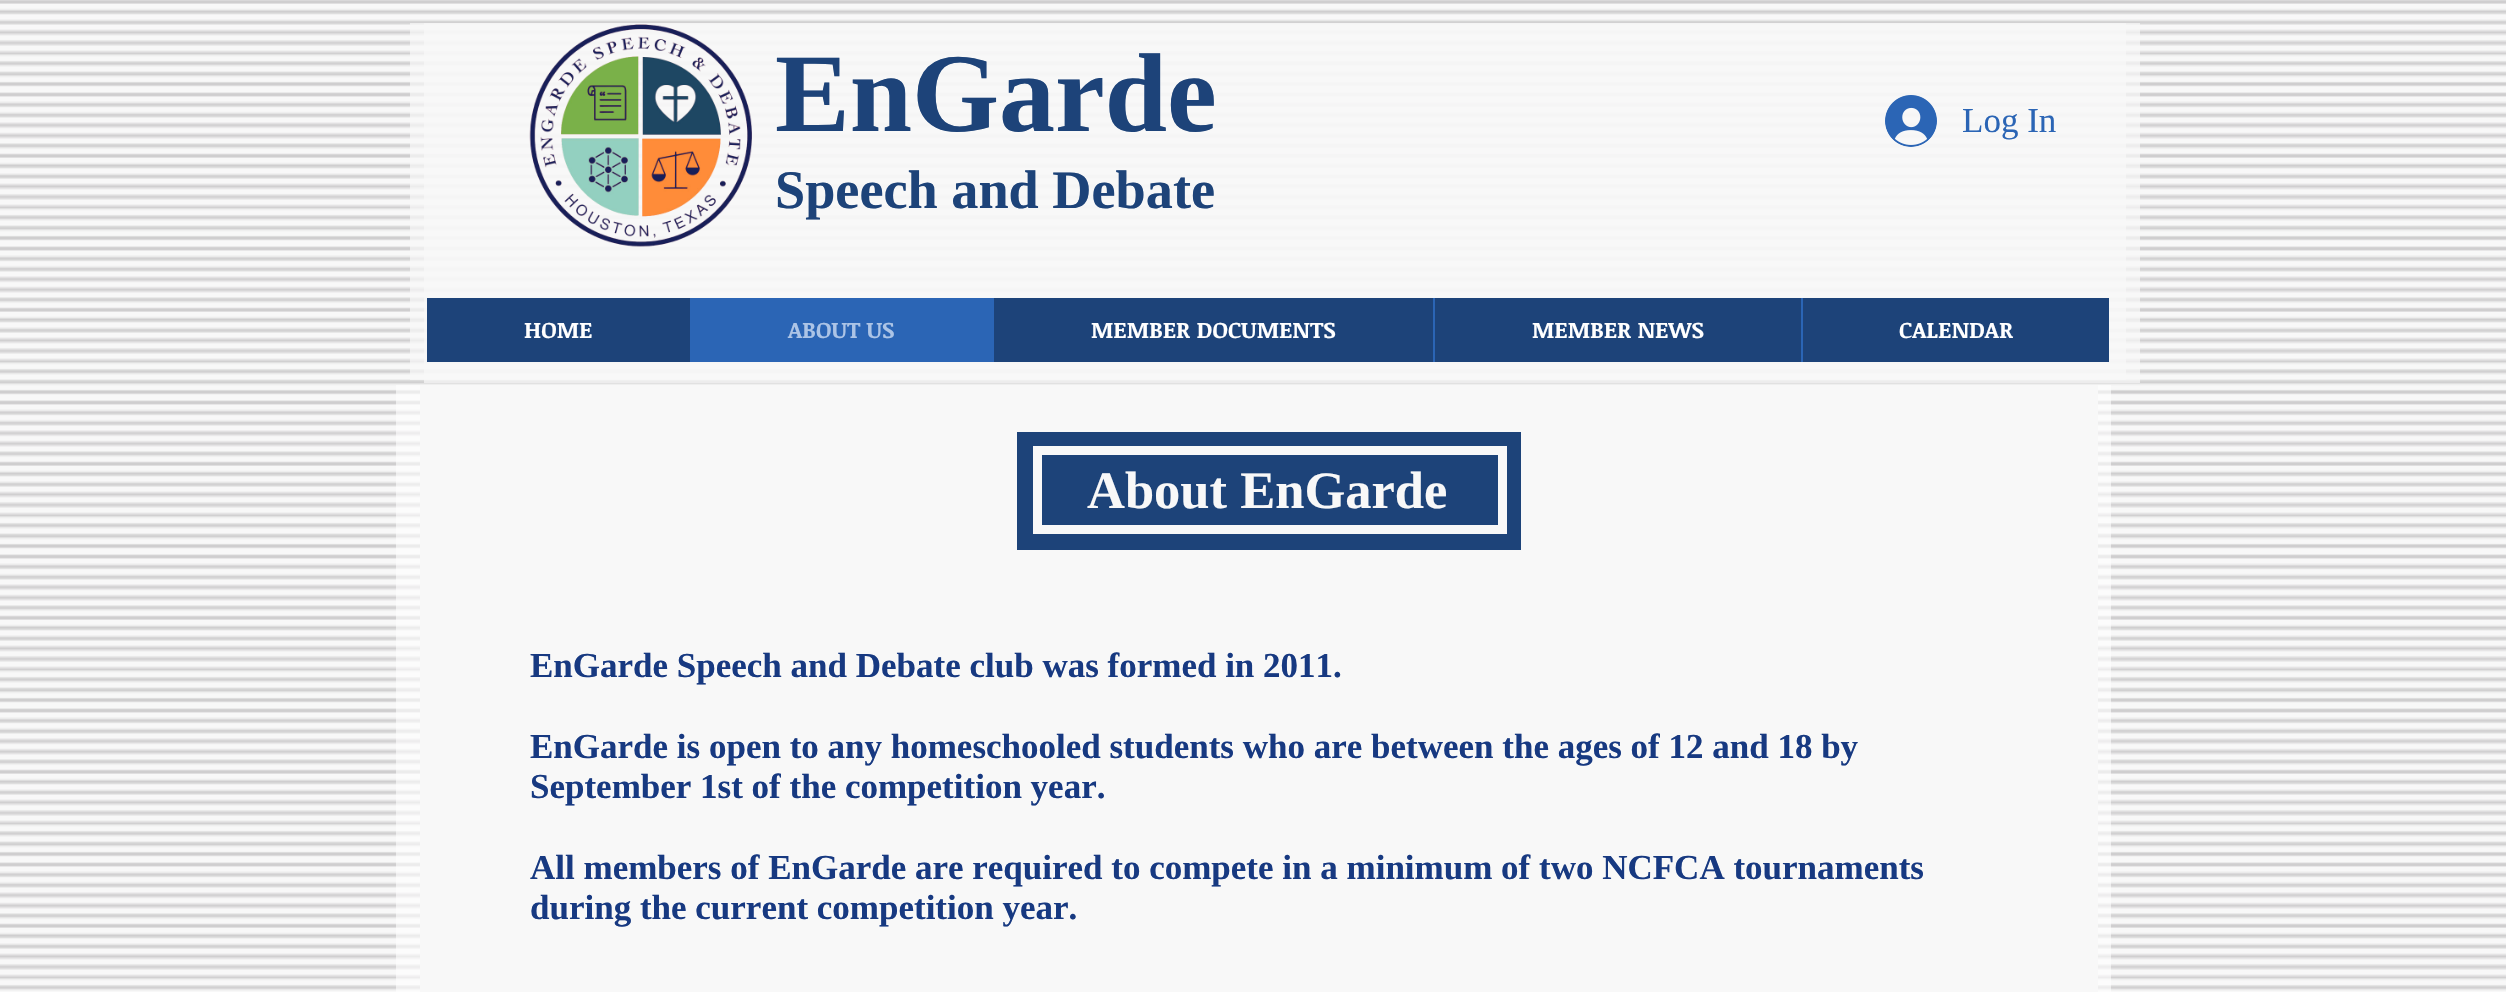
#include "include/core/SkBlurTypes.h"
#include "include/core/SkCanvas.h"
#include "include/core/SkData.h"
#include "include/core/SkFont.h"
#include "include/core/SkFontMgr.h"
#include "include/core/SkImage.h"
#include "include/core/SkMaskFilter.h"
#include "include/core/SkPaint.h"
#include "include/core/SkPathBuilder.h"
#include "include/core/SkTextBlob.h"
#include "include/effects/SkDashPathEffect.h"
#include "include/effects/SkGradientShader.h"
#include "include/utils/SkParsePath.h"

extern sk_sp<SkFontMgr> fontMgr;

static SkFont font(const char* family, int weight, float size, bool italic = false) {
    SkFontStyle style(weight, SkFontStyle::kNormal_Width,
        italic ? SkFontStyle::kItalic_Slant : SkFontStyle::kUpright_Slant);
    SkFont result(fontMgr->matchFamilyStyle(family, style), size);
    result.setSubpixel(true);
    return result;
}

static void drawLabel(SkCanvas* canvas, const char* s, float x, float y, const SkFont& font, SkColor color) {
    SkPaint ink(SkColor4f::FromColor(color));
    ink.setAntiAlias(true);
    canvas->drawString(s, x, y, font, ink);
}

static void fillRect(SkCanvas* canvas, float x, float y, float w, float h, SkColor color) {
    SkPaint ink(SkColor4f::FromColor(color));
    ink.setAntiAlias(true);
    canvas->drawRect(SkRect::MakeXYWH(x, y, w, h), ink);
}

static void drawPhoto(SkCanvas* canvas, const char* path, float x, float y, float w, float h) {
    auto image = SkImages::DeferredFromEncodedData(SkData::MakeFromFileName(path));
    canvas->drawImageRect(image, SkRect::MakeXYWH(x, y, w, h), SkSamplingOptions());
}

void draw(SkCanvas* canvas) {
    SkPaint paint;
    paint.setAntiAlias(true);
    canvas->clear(0xFFF8F8F8);
    drawPhoto(canvas, "assets/img1.png", 0, 0, 2506, 991);
    fillRect(canvas, 424, 23, 1716, 360, 0xB3F8F8F8);
    fillRect(canvas, 410, 23, 1716, 357, 0xB3F8F8F8);
    drawPhoto(canvas, "assets/img2.png", 529, 24, 223, 223);
    SkFont font1 = font("Liberation Serif", 700, 112);
    drawLabel(canvas, "EnGarde", 775, 131, font1, 0xFF1D4379);
    SkFont font2 = font("Liberation Serif", 700, 54.25f);
    drawLabel(canvas, "Speech and Debate", 775, 208, font2, 0xFF1D4379);
    drawPhoto(canvas, "assets/img3.png", 1885, 95, 52, 52);
    SkFont font3 = font("Liberation Serif", 400, 35);
    drawLabel(canvas, "Log In", 1962, 132, font3, 0xFF2B65B5);
    fillRect(canvas, 427, 298, 1682, 64, 0xFF1D4379);
    SkFont font4 = font("Noticia Text", 700, 22.75f);
    drawLabel(canvas, "HOME", 524, 338, font4, 0xFFFFFFFF);
    fillRect(canvas, 690, 298, 304, 64, 0xFF2B65B5);
    drawLabel(canvas, "ABOUT US", 788, 338, font4, 0xFFACC4E6);
    drawLabel(canvas, "MEMBER DOCUMENTS", 1091, 338, font4, 0xFFFFFFFF);
    fillRect(canvas, 1433, 298, 2, 64, 0xFF2B65B5);
    drawLabel(canvas, "MEMBER NEWS", 1532, 338, font4, 0xFFFFFFFF);
    fillRect(canvas, 1801, 298, 2, 64, 0xFF2B65B5);
    drawLabel(canvas, "CALENDAR", 1899, 338, font4, 0xFFFFFFFF);
    fillRect(canvas, 396, 385, 1715, 607, 0x99FFFFFF);
    fillRect(canvas, 420, 385, 1678, 607, 0xFFF8F8F8);
    fillRect(canvas, 1017, 432, 504, 118, 0xFF1D4379);
    paint.setStroke(true);
    paint.setStrokeWidth(9);
    paint.setColor(0xFFF8F8F8);
    canvas->drawRect(SkRect::MakeXYWH(1037.5f, 450.5f, 465, 79), paint);
    SkFont font5 = font("Liberation Serif", 700, 52.5f);
    drawLabel(canvas, "About EnGarde", 1087, 508, font5, 0xFFF8F8F8);
    SkFont font6 = font("Liberation Serif", 700, 35);
    drawLabel(canvas, "EnGarde Speech and Debate club was formed in 2011.", 530, 677, font6, 0xFF173981);
    drawLabel(canvas, "EnGarde is open to any homeschooled students who are between the ages of 12 and 18 by", 530, 758, font6, 0xFF173981);
    drawLabel(canvas, "September 1st of the competition year.", 530, 798, font6, 0xFF173981);
    drawLabel(canvas, "All members of EnGarde are required to compete in a minimum of two NCFCA tournaments", 530, 879, font6, 0xFF173981);
    drawLabel(canvas, "during the current competition year.", 530, 919, font6, 0xFF173981);
}
